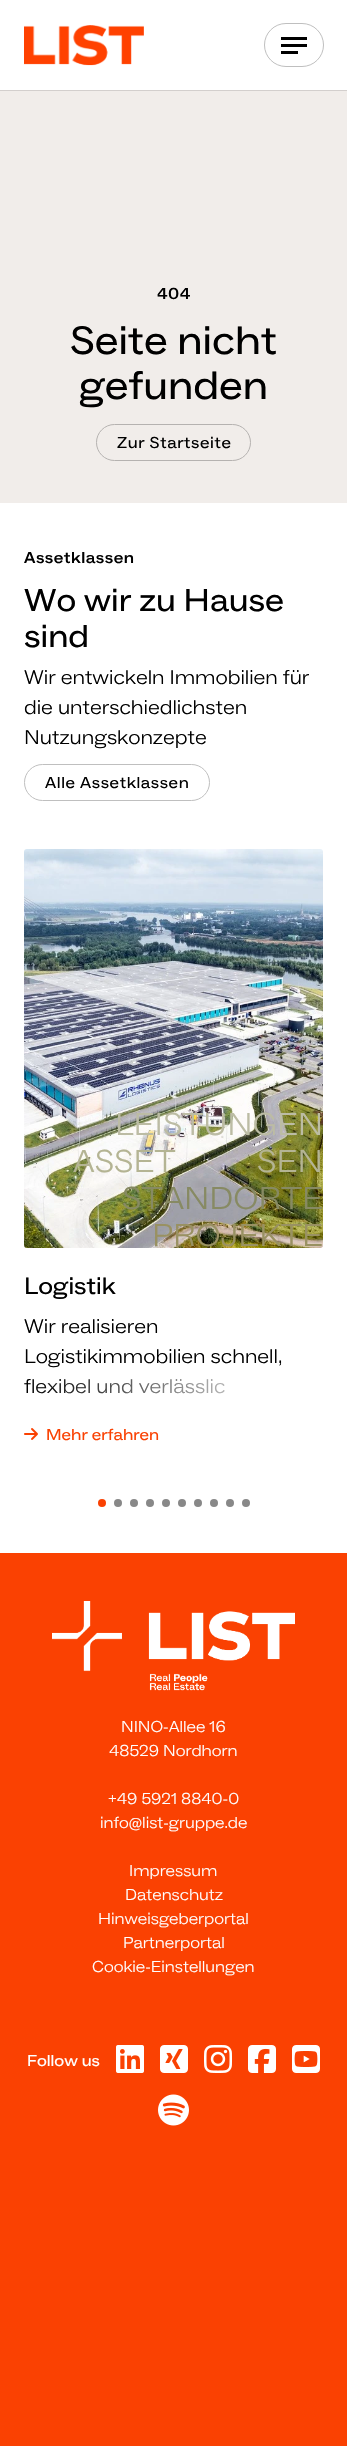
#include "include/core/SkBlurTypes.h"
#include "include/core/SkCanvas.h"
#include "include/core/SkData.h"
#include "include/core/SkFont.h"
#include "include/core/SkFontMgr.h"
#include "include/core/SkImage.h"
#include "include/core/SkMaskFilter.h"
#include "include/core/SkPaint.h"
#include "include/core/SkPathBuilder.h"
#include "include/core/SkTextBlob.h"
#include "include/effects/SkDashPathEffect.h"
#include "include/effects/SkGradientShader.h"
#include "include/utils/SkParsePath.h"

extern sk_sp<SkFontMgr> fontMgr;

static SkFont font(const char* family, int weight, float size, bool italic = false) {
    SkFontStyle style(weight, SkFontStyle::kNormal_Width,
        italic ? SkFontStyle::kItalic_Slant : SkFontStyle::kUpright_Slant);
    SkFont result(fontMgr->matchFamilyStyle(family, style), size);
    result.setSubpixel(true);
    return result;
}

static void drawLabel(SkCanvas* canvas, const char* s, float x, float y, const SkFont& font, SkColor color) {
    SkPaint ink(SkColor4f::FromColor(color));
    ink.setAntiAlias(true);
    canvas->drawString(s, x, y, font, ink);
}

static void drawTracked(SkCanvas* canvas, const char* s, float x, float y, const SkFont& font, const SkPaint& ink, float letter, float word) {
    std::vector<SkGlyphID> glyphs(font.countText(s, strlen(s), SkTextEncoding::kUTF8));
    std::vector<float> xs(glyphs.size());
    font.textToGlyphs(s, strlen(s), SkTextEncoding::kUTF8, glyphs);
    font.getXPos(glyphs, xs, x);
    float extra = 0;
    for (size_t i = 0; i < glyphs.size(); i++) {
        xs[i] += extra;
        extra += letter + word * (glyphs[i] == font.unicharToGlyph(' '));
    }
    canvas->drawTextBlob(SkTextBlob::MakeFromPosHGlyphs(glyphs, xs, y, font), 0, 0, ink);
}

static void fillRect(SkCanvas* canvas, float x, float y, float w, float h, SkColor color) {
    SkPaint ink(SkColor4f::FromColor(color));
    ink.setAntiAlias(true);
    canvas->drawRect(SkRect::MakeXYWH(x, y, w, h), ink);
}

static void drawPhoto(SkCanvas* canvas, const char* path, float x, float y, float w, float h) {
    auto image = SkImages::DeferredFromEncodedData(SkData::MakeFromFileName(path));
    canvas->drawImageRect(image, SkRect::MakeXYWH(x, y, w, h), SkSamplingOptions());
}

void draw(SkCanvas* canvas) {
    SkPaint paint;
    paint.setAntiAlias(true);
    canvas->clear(0xFFFA4102);
    fillRect(canvas, 0, 0, 347, 1553, 0xFFFFFFFF);
    paint.setStroke(true);
    paint.setStrokeWidth(1);
    paint.setColor(0xFFD3CFCD);
    canvas->drawRect(SkRect::MakeXYWH(-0.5f, -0.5f, 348, 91), paint);
    drawPhoto(canvas, "assets/img1.png", 24, 25, 120, 41);
    paint.setColor(0xFFBFBFBF);
    canvas->drawRoundRect(SkRect::MakeXYWH(264.5f, 23.5f, 59, 43), 21.5f, 21.5f, paint);
    fillRect(canvas, 281, 37, 26, 3, 0xFF000000);
    fillRect(canvas, 281, 44, 26, 3, 0xFF000000);
    fillRect(canvas, 281, 51, 17, 3, 0xFF000000);
    fillRect(canvas, 0, 91, 347, 412, 0xFFF1EDEA);
    SkFont font1 = font("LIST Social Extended", 500, 16);
    paint.setStroke(false);
    paint.setColor(0xFF000000);
    drawTracked(canvas, "404", 157, 299, font1, paint, 0.5f, 0);
    SkFont font2 = font("LIST Social Extended", 400, 40);
    drawLabel(canvas, "Seite nicht", 70, 354, font2, 0xFF000000);
    drawLabel(canvas, "gefunden", 79, 399, font2, 0xFF000000);
    paint.setStroke(true);
    paint.setColor(0xFFB5B2B0);
    canvas->drawRoundRect(SkRect::MakeXYWH(96.5f, 424.5f, 154, 36), 18, 18, paint);
    SkFont font3 = font("LIST Social Extended", 400, 16);
    paint.setStroke(false);
    paint.setColor(0xFF000000);
    drawTracked(canvas, "Zur Startseite", 117, 448, font3, paint, 0.6f, 0);
    drawTracked(canvas, "Assetklassen", 24, 563, font1, paint, 0.5f, 0);
    SkFont font4 = font("LIST Social Extended", 400, 32);
    drawLabel(canvas, "Wo wir zu Hause", 24, 611, font4, 0xFF000000);
    drawLabel(canvas, "sind", 24, 647, font4, 0xFF000000);
    SkFont font5 = font("LIST Social Extended", 300, 20);
    drawLabel(canvas, "Wir entwickeln Immobilien für", 24, 684, font5, 0xFF000000);
    drawLabel(canvas, "die unterschiedlichsten", 24, 714, font5, 0xFF000000);
    drawLabel(canvas, "Nutzungskonzepte", 24, 744, font5, 0xFF000000);
    paint.setStroke(true);
    paint.setColor(0xFFBFBFBF);
    canvas->drawRoundRect(SkRect::MakeXYWH(24.5f, 764.5f, 185, 36), 18, 18, paint);
    paint.setStroke(false);
    paint.setColor(0xFF000000);
    drawTracked(canvas, "Alle Assetklassen", 45, 788, font3, paint, 0.6f, 0);
    drawPhoto(canvas, "assets/img2.png", 24, 849, 299, 399);
    SkFont font6 = font("LIST Social Extended", 400, 24);
    drawLabel(canvas, "Logistik", 24, 1294, font6, 0xFF000000);
    drawLabel(canvas, "Wir realisieren", 24, 1333, font5, 0xFF000000);
    drawLabel(canvas, "Logistikimmobilien schnell,", 24, 1363, font5, 0xFF000000);
    drawLabel(canvas, "flexibel und verlässlic", 24, 1393, font5, 0xFF000000);
    {
        const SkColor colors[] = {0x00FFFFFF, 0xFFFFFFFF};
        const float stops[] = {0, 0.95f};
        const SkPoint ends[] = {{24, 1389}, {323, 1389}};
        paint.setShader(SkGradientShader::MakeLinear(ends, colors, stops, 2, SkTileMode::kClamp));
        paint.setAlpha(255);
    }
    canvas->drawRect(SkRect::MakeXYWH(30, 1379, 195, 15), paint);
    drawPhoto(canvas, "assets/img3.png", 24, 1428, 14, 12);
    drawLabel(canvas, "Mehr erfahren", 46, 1440, font3, 0xFFFA4102);
    paint.setShader(nullptr);
    paint.setColor(0xFFFA4102);
    canvas->drawCircle(102, 1503, 4, paint);
    paint.setColor(0xFF888888);
    canvas->drawCircle(118, 1503, 4, paint);
    canvas->drawCircle(134, 1503, 4, paint);
    canvas->drawCircle(150, 1503, 4, paint);
    canvas->drawCircle(166, 1503, 4, paint);
    canvas->drawCircle(182, 1503, 4, paint);
    canvas->drawCircle(198, 1503, 4, paint);
    canvas->drawCircle(214, 1503, 4, paint);
    canvas->drawCircle(230, 1503, 4, paint);
    canvas->drawCircle(246, 1503, 4, paint);
    SkFont font7 = font("LIST Social Extended", 300, 32);
    drawLabel(canvas, "LEISTUNGEN", 115, 1135, font7, 0xFFBCBCA4);
    drawLabel(canvas, "ASSET", 73, 1172, font7, 0xFFB4B493);
    drawLabel(canvas, "SEN", 257, 1172, font7, 0xFFB4B493);
    drawLabel(canvas, "STANDORTE", 122, 1209, font7, 0xFF878A63);
    drawLabel(canvas, "PROJEKTE", 152, 1246, font7, 0xFF999162);
    drawPhoto(canvas, "assets/img4.png", 52, 1601, 243, 90);
    SkFont font8 = font("LIST Social Extended", 300, 16);
    drawLabel(canvas, "NINO-Allee 16", 121, 1732, font8, 0xFFFFFFFF);
    drawLabel(canvas, "48529 Nordhorn", 109, 1756, font8, 0xFFFFFFFF);
    drawLabel(canvas, "+49 5921 8840-0", 108, 1804, font8, 0xFFFFFFFF);
    drawLabel(canvas, "info@list-gruppe.de", 100, 1828, font8, 0xFFFFFFFF);
    drawLabel(canvas, "Impressum", 129, 1876, font8, 0xFFFFFFFF);
    drawLabel(canvas, "Datenschutz", 125, 1900, font8, 0xFFFFFFFF);
    drawLabel(canvas, "Hinweisgeberportal", 98, 1924, font8, 0xFFFFFFFF);
    drawLabel(canvas, "Partnerportal", 123, 1948, font8, 0xFFFFFFFF);
    drawLabel(canvas, "Cookie-Einstellungen", 92, 1972, font8, 0xFFFFFFFF);
    drawLabel(canvas, "Follow us", 27, 2066, font3, 0xFFFFFFFF);
    drawPhoto(canvas, "assets/img5.png", 116, 2045, 28, 28);
    drawPhoto(canvas, "assets/img6.png", 160, 2045, 28, 28);
    drawPhoto(canvas, "assets/img7.png", 204, 2045, 28, 28);
    drawPhoto(canvas, "assets/img8.png", 248, 2045, 28, 28);
    drawPhoto(canvas, "assets/img9.png", 292, 2045, 28, 28);
    drawPhoto(canvas, "assets/img10.png", 158, 2094, 31, 32);
}
